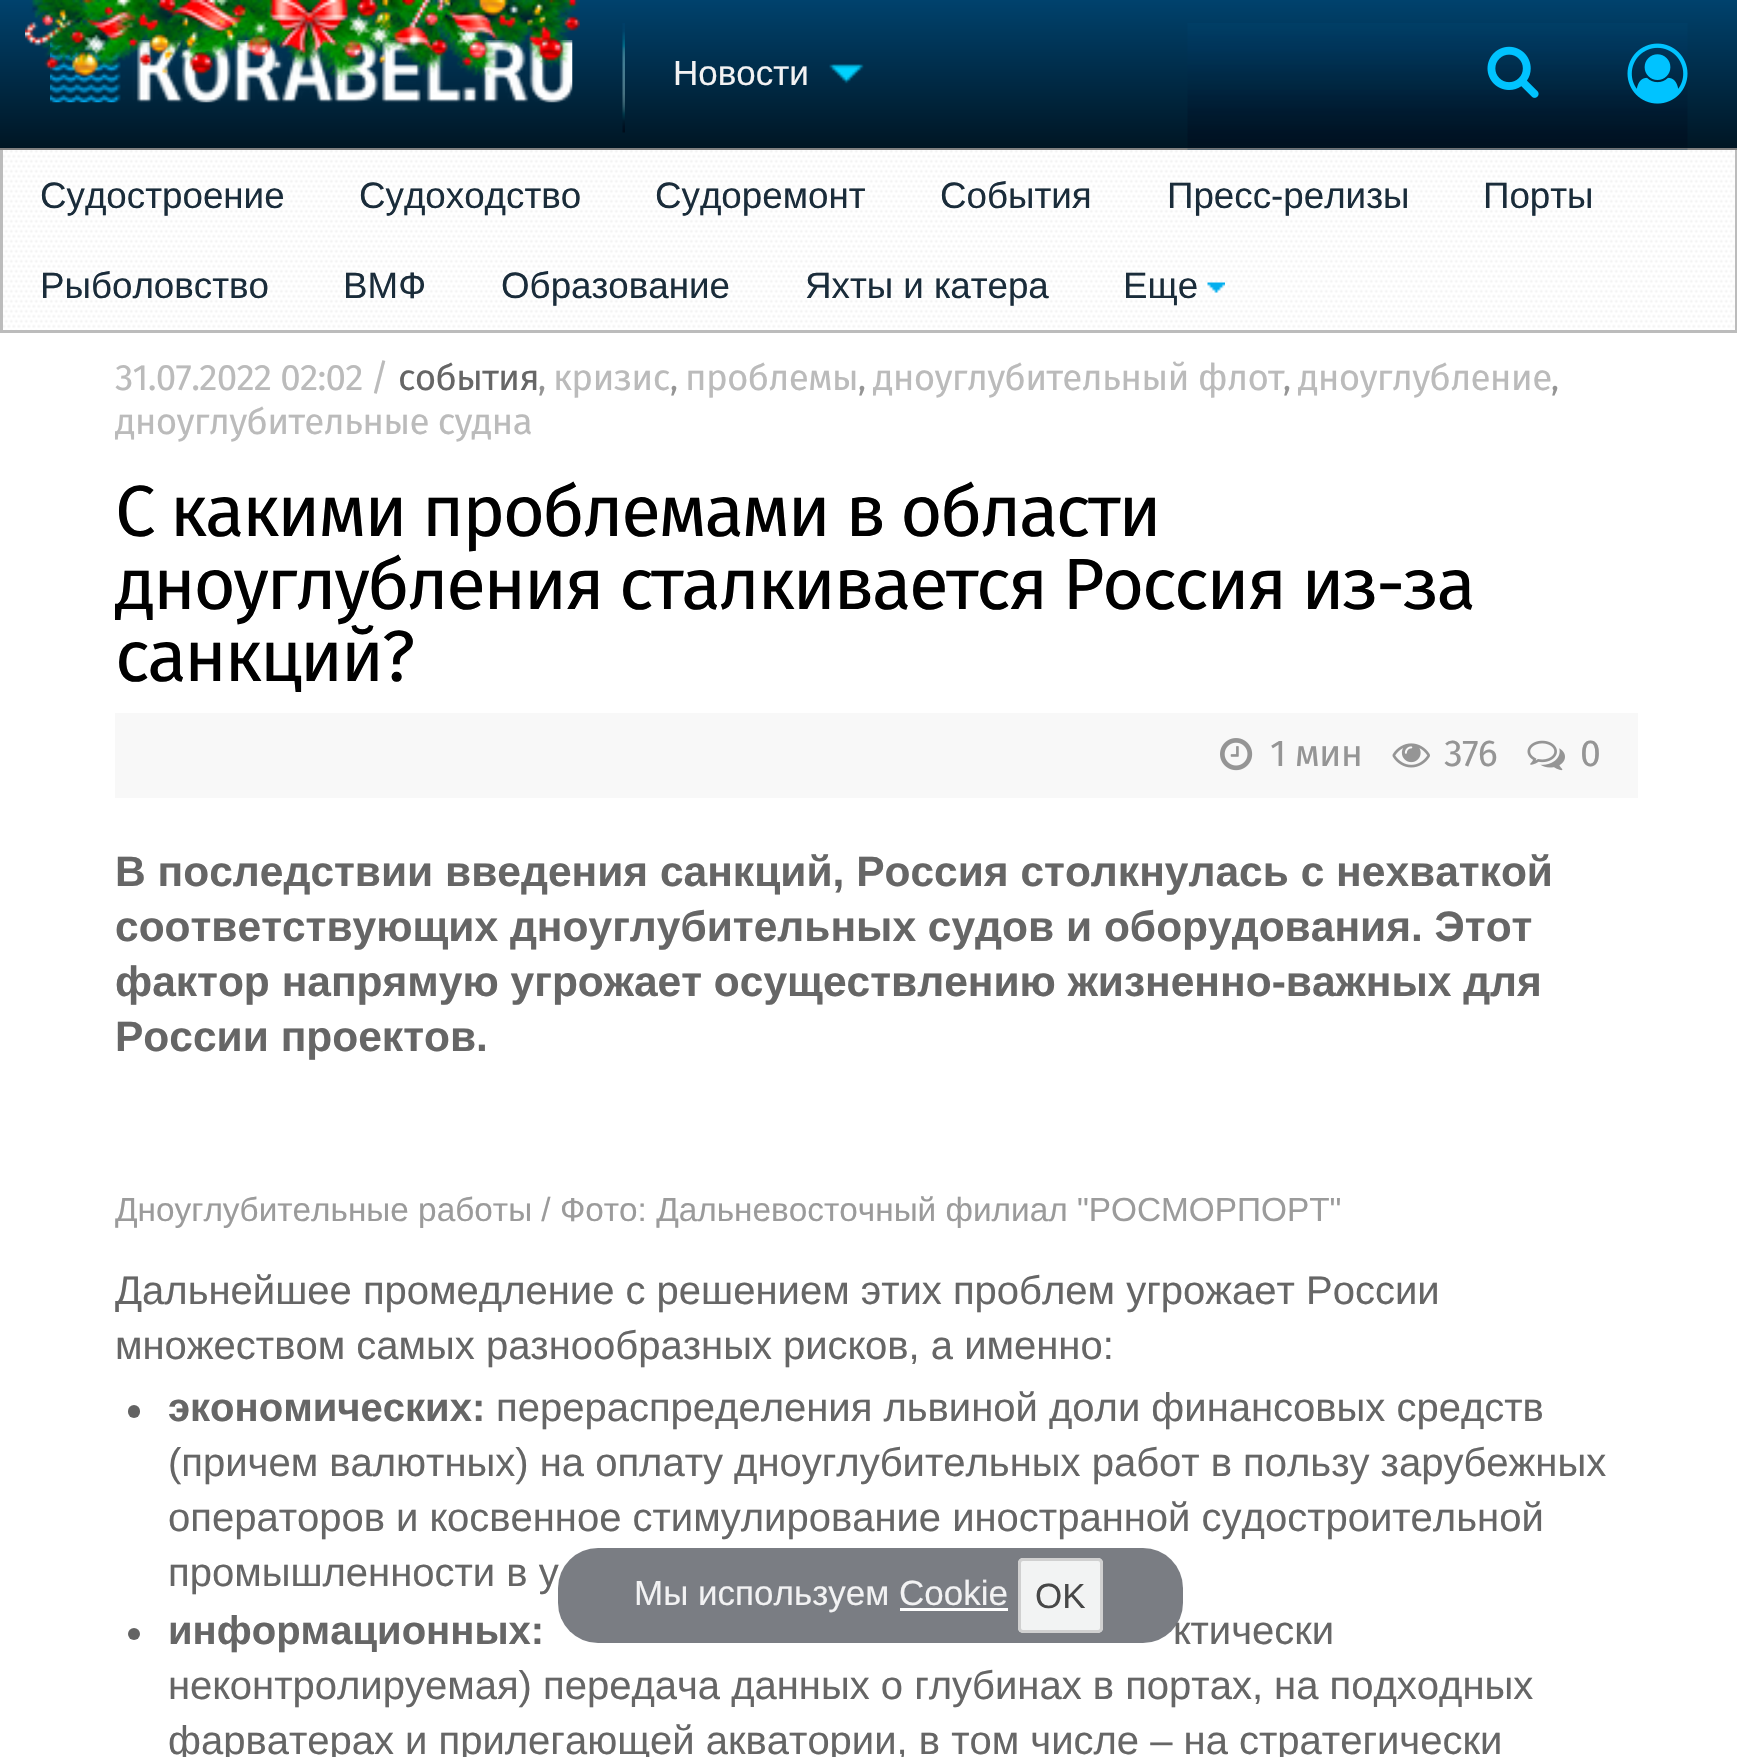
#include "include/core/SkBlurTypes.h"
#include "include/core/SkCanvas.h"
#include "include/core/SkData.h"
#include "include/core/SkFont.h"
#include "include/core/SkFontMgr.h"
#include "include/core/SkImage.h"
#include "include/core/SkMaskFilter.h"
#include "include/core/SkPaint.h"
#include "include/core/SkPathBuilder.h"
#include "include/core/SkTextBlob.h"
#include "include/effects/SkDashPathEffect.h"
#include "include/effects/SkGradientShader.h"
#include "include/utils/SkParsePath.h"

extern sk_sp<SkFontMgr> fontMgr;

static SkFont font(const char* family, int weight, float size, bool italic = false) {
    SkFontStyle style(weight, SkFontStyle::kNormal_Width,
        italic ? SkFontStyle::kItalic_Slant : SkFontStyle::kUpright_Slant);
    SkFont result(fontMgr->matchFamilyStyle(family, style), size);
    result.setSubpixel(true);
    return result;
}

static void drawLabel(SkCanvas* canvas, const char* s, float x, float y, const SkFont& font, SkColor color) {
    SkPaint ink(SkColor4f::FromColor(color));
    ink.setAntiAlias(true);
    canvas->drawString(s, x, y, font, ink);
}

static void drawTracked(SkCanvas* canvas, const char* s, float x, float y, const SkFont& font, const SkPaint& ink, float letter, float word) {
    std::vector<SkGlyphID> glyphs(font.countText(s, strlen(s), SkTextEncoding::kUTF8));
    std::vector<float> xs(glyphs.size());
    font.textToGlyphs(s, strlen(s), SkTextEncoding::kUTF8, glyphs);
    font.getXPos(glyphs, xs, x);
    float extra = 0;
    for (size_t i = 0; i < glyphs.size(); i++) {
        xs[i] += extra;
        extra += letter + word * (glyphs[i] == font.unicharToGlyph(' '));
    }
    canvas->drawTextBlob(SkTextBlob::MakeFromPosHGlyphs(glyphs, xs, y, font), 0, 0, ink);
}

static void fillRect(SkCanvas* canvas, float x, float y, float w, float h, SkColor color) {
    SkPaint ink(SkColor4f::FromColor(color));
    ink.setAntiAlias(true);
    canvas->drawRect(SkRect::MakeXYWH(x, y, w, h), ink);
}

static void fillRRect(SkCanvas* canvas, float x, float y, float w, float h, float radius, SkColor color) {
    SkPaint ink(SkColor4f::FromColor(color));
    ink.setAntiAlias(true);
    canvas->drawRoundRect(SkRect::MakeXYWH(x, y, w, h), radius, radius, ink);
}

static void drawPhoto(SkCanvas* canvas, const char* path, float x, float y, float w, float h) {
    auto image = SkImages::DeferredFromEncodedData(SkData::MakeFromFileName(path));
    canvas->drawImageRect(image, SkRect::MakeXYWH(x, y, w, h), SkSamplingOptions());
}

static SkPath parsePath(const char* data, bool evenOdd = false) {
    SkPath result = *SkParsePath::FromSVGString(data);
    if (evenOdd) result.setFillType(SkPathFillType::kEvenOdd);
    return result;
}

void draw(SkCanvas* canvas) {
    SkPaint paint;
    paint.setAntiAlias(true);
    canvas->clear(0xFFFFFFFF);
    paint.setColor(0xFF808080);
    canvas->drawPath(parsePath("M0 148V150H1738V3V148Z"), paint);
    {
        const SkColor colors[] = {0xFF00426D, 0xFF001624};
        const float stops[] = {0, 1};
        const SkPoint ends[] = {{869, 0}, {869, 148}};
        paint.setShader(SkGradientShader::MakeLinear(ends, colors, stops, 2, SkTileMode::kClamp));
        paint.setAlpha(255);
    }
    canvas->drawRect(SkRect::MakeXYWH(0, 0, 1737, 148), paint);
    drawPhoto(canvas, "assets/img5.png", 50, 40, 523, 63);
    drawPhoto(canvas, "assets/img1.png", 25, 0, 555, 80);
    drawPhoto(canvas, "assets/img2.png", 622, 23, 3, 110);
    drawPhoto(canvas, "assets/img3.png", 1187, 23, 501, 127);
    drawPhoto(canvas, "assets/img4.png", 1627, 43, 61, 61);
    SkFont font1 = font("Liberation Sans", 400, 35);
    drawLabel(canvas, "Новости", 673, 85, font1, 0xFFF2F2F3);
    drawPhoto(canvas, "assets/img6.png", 829, 64, 35, 20);
    drawPhoto(canvas, "assets/img7.png", 1487, 46, 52, 52);
    drawPhoto(canvas, "assets/img8.png", 3, 150, 1732, 180);
    fillRect(canvas, 1735, 150, 2, 183, 0xFFBCBCBC);
    fillRect(canvas, 3, 330, 1734, 3, 0xFFBCBCBC);
    fillRect(canvas, 0, 150, 3, 183, 0xFFBCBCBC);
    SkFont font2 = font("Liberation Sans", 400, 36.75f);
    drawLabel(canvas, "Судостроение", 40, 208, font2, 0xFF1A2C3A);
    drawLabel(canvas, "Судоходство", 359, 208, font2, 0xFF1A2C3A);
    drawLabel(canvas, "Судоремонт", 655, 208, font2, 0xFF1A2C3A);
    drawLabel(canvas, "События", 940, 208, font2, 0xFF1A2C3A);
    drawLabel(canvas, "Пресс-релизы", 1167, 208, font2, 0xFF1A2C3A);
    drawLabel(canvas, "Порты", 1483, 208, font2, 0xFF1A2C3A);
    drawLabel(canvas, "Рыболовство", 40, 298, font2, 0xFF1A2C3A);
    drawLabel(canvas, "ВМФ", 343, 298, font2, 0xFF1A2C3A);
    drawLabel(canvas, "Образование", 501, 298, font2, 0xFF1A2C3A);
    drawLabel(canvas, "Яхты и катера", 805, 298, font2, 0xFF1A2C3A);
    drawLabel(canvas, "Еще", 1123, 298, font2, 0xFF1A2C3A);
    drawPhoto(canvas, "assets/img9.png", 1207, 282, 18, 11);
    SkFont font3 = font("Fira Sans", 400, 36.75f);
    paint.setShader(nullptr);
    paint.setColor(0xFFBBBBBB);
    drawTracked(canvas, "31.07.2022 02:02", 115, 390, font3, paint, -0.75f, 0);
    drawTracked(canvas, "/", 370, 390, font3, paint, -0.75f, 0);
    paint.setColor(0xFF666666);
    drawTracked(canvas, "события", 398, 390, font3, paint, -0.75f, 0);
    SkFont font4 = font("Fira Sans", 400, 33.35f);
    paint.setColor(0xFF959595);
    drawTracked(canvas, ",", 538, 390, font4, paint, -0.75f, 0);
    paint.setColor(0xFFBBBBBB);
    drawTracked(canvas, "кризис", 553, 390, font3, paint, -0.75f, 0);
    paint.setColor(0xFF959595);
    drawTracked(canvas, ",", 670, 390, font4, paint, -0.75f, 0);
    paint.setColor(0xFFBBBBBB);
    drawTracked(canvas, "проблемы", 685, 390, font3, paint, -0.75f, 0);
    paint.setColor(0xFF959595);
    drawTracked(canvas, ",", 858, 390, font4, paint, -0.75f, 0);
    paint.setColor(0xFFBBBBBB);
    drawTracked(canvas, "дноуглубительный флот", 873, 390, font3, paint, -0.75f, 0);
    paint.setColor(0xFF959595);
    drawTracked(canvas, ",", 1283, 390, font4, paint, -0.75f, 0);
    paint.setColor(0xFFBBBBBB);
    drawTracked(canvas, "дноуглубление", 1298, 390, font3, paint, -0.75f, 0);
    paint.setColor(0xFF959595);
    drawTracked(canvas, ",", 1551, 390, font4, paint, -0.75f, 0);
    paint.setColor(0xFFBBBBBB);
    drawTracked(canvas, "дноуглубительные судна", 115, 434, font3, paint, -0.75f, 0);
    SkFont font5 = font("Fira Sans", 400, 72.5f);
    paint.setColor(0xFF000000);
    drawTracked(canvas, "С какими проблемами в области", 115, 536, font5, paint, -2.5f, 0);
    drawTracked(canvas, "дноуглубления сталкивается Россия из-за", 115, 609, font5, paint, -2.5f, 0);
    drawTracked(canvas, "санкций?", 115, 681, font5, paint, -2.5f, 0);
    fillRect(canvas, 115, 713, 1523, 85, 0xFFF8F8F8);
    drawPhoto(canvas, "assets/img10.png", 1220, 738, 33, 33);
    SkFont font6 = font("Fira Sans", 400, 37.5f);
    paint.setColor(0xFF959595);
    drawTracked(canvas, "1 мин", 1270, 766, font6, paint, -0.75f, 0);
    drawPhoto(canvas, "assets/img11.png", 1392, 743, 38, 25);
    drawTracked(canvas, "376", 1444, 766, font6, paint, -0.75f, 0);
    drawPhoto(canvas, "assets/img12.png", 1527, 740, 38, 31);
    drawTracked(canvas, "0", 1580, 766, font6, paint, -0.75f, 0);
    SkFont font7 = font("Liberation Sans", 700, 42.5f);
    drawLabel(canvas, "В последствии введения санкций, Россия столкнулась с нехваткой", 115, 886, font7, 0xFF666666);
    drawLabel(canvas, "соответствующих дноуглубительных судов и оборудования. Этот", 115, 941, font7, 0xFF666666);
    drawLabel(canvas, "фактор напрямую угрожает осуществлению жизненно-важных для", 115, 996, font7, 0xFF666666);
    drawLabel(canvas, "России проектов.", 115, 1051, font7, 0xFF666666);
    SkFont font8 = font("Liberation Sans", 400, 33.35f);
    drawLabel(canvas, "Дноуглубительные работы / Фото: Дальневосточный филиал \"РОСМОРПОРТ\"", 115, 1221, font8, 0xFF9B9B9B);
    SkFont font9 = font("Liberation Sans", 400, 40);
    drawLabel(canvas, "Дальнейшее промедление с решением этих проблем угрожает России", 115, 1304, font9, 0xFF666666);
    drawLabel(canvas, "множеством самых разнообразных рисков, а именно:", 115, 1359, font9, 0xFF666666);
    fillRRect(canvas, 128, 1405, 12, 13, 6, 0xFF636363);
    SkFont font10 = font("Liberation Sans", 700, 40);
    drawLabel(canvas, "экономических:", 168, 1421, font10, 0xFF666666);
    drawLabel(canvas, "перераспределения львиной доли финансовых средств", 496, 1421, font9, 0xFF666666);
    drawLabel(canvas, "(причем валютных) на оплату дноуглубительных работ в пользу зарубежных", 168, 1476, font9, 0xFF666666);
    drawLabel(canvas, "операторов и косвенное стимулирование иностранной судостроительной", 168, 1531, font9, 0xFF666666);
    drawLabel(canvas, "промышленности в у", 168, 1586, font9, 0xFF666666);
    paint.setColor(0xFF636363);
    canvas->drawCircle(134, 1634, 6, paint);
    drawLabel(canvas, "информационных:", 168, 1644, font10, 0xFF666666);
    drawLabel(canvas, "ктически", 1173, 1644, font9, 0xFF666666);
    drawLabel(canvas, "неконтролируемая) передача данных о глубинах в портах, на подходных", 168, 1699, font9, 0xFF666666);
    drawLabel(canvas, "фарватерах и прилегающей акватории, в том числе – на стратегически", 168, 1754, font9, 0xFF666666);
    fillRRect(canvas, 558, 1548, 625, 95, 40, 0xE66C6F76);
    drawLabel(canvas, "Мы используем Cookie", 634, 1605, font1, 0xFFF2F2F3);
    fillRRect(canvas, 1018, 1558, 85, 75, 5, 0xE6FFFFFF);
    paint.setStroke(true);
    paint.setStrokeWidth(3);
    paint.setColor(0xE6CCCCCC);
    canvas->drawRoundRect(SkRect::MakeXYWH(1019.5f, 1559.5f, 82, 72), 3.5f, 3.5f, paint);
    drawLabel(canvas, "OK", 1035, 1608, font1, 0xFF474747);
    fillRect(canvas, 900, 1608, 108, 3, 0xFFFFFFFF);
}
